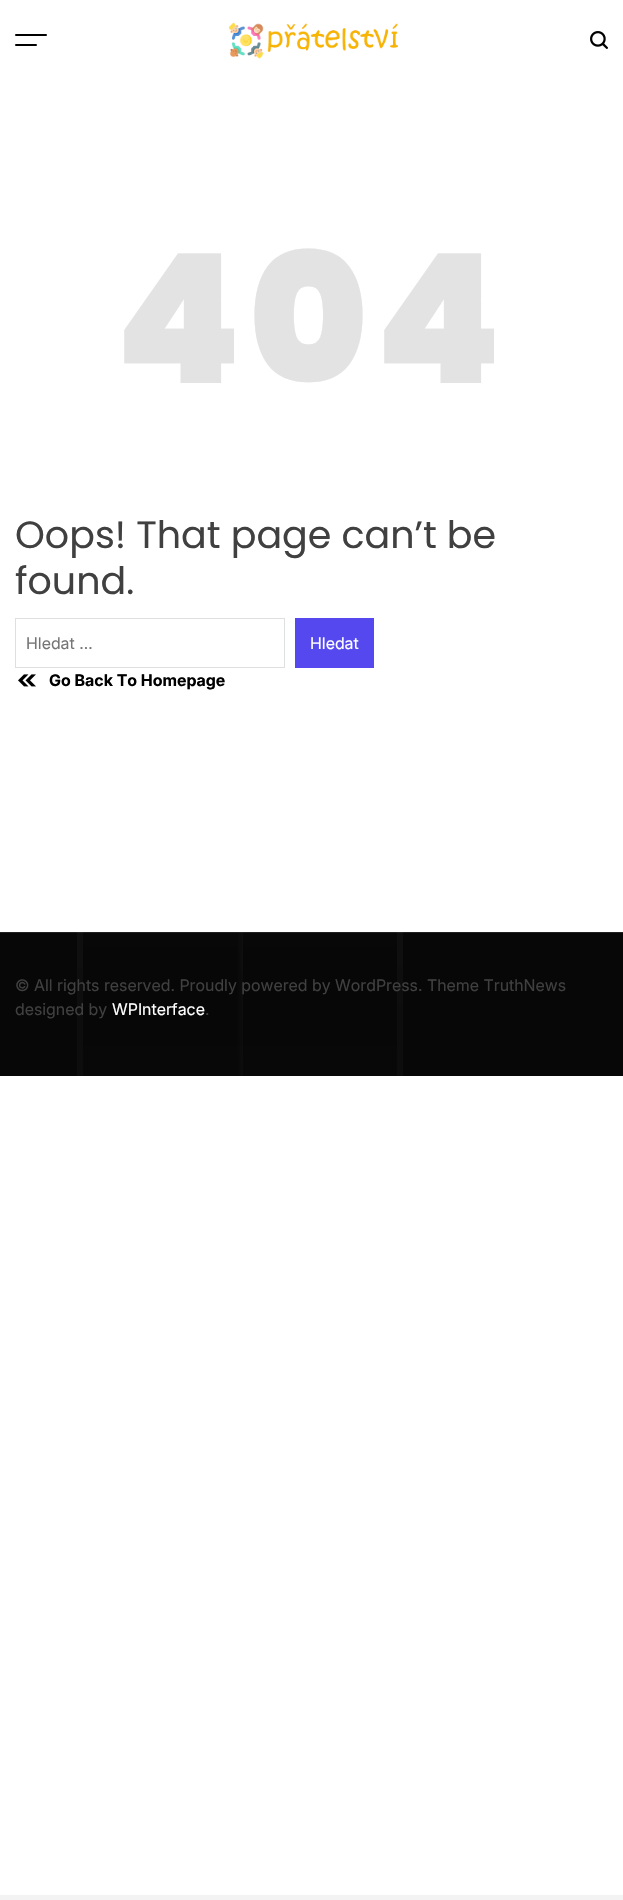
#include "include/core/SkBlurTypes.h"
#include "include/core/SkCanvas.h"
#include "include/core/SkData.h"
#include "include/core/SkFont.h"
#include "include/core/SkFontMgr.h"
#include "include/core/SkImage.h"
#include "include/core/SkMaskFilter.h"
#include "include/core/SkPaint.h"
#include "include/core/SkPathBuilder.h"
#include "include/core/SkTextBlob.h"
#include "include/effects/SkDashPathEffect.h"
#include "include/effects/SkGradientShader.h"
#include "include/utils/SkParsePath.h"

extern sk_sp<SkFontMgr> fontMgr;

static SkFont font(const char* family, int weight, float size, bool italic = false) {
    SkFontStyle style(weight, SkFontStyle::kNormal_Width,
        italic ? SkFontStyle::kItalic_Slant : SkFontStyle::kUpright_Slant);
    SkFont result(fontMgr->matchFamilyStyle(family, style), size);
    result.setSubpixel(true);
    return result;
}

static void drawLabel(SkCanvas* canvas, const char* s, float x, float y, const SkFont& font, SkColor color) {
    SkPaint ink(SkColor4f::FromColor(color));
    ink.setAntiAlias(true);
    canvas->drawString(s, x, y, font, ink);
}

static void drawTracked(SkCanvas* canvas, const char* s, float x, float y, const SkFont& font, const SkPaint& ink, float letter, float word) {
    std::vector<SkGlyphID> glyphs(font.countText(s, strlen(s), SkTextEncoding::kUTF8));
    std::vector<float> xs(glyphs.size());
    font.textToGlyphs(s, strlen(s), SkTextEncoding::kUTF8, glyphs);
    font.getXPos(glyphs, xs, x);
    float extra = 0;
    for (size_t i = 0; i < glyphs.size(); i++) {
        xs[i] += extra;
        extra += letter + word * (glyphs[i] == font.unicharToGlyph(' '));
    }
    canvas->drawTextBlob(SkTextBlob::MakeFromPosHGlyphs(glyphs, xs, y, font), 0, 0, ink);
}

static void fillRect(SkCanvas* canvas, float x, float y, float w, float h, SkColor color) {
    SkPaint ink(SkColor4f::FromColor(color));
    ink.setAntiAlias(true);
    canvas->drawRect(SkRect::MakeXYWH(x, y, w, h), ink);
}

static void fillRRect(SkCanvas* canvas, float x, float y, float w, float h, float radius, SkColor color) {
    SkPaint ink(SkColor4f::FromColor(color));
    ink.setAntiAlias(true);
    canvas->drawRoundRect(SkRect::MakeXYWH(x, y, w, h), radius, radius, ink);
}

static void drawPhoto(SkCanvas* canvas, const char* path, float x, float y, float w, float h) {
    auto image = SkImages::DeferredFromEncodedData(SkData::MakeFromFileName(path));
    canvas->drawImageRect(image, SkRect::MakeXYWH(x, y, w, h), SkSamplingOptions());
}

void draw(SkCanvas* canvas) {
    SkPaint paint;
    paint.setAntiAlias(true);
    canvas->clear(0xFFFFFFFF);
    fillRRect(canvas, 15, 34, 32, 2, 1, 0xFF000000);
    fillRRect(canvas, 15, 44, 22, 2, 1, 0xFF000000);
    drawPhoto(canvas, "assets/img1.png", 228, 22, 170, 37);
    drawPhoto(canvas, "assets/img2.png", 590, 31, 18, 18);
    SkFont font1 = font("Poppins", 900, 180);
    paint.setColor(0xFFE3E3E3);
    drawTracked(canvas, "404", 115, 383, font1, paint, 7, 0);
    SkFont font2 = font("Poppins", 400, 38);
    drawLabel(canvas, "Oops! That page can’t be", 15, 548, font2, 0xFF404040);
    drawLabel(canvas, "found.", 15, 594, font2, 0xFF404040);
    paint.setStroke(true);
    paint.setStrokeWidth(1);
    paint.setColor(0xFFDEDFDF);
    canvas->drawRect(SkRect::MakeXYWH(15.5f, 618.5f, 269, 49), paint);
    SkFont font3 = font("Inter", 400, 16);
    drawLabel(canvas, "Hledat …", 26, 649, font3, 0xFF757575);
    fillRect(canvas, 295, 618, 79, 50, 0xFF5448EE);
    drawLabel(canvas, "Hledat", 310, 649, font3, 0xFFFFFFFF);
    drawPhoto(canvas, "assets/img3.png", 18, 674, 18, 13);
    SkFont font4 = font("Inter", 700, 16);
    drawLabel(canvas, "Go Back To Homepage", 49, 686, font4, 0xFF000000);
    paint.setStroke(false);
    {
        const SkColor colors[] = {0xFF212121, 0xFF070707, 0xFF070707, 0xFF212121, 0xFF070707, 0xFF070707, 0xFF212121, 0xFF212121, 0xFF070707, 0xFF070707, 0xFF212121, 0xFF070707, 0xFF070707, 0xFF212121, 0xFF070707, 0xFF070707, 0xFF212121, 0xFF070707, 0xFF070707, 0xFF212121, 0xFF070707, 0xFF070707, 0xFF212121, 0xFF070707, 0xFF070707, 0xFF212121, 0xFF070707, 0xFF070707, 0xFF212121, 0xFF070707, 0xFF070707, 0xFF212121, 0xFF212121, 0xFF070707, 0xFF070707, 0xFF212121, 0xFF070707, 0xFF070707, 0xFF212121, 0xFF070707, 0xFF070707, 0xFF212121, 0xFF070707, 0xFF070707, 0xFF212121, 0xFF070707, 0xFF070707, 0xFF212121, 0xFF070707, 0xFF070707};
        const float stops[] = {0, 0, 0.06f, 0.06f, 0.06f, 0.12f, 0.12f, 0.13f, 0.13f, 0.19f, 0.19f, 0.19f, 0.25f, 0.25f, 0.25f, 0.31f, 0.31f, 0.31f, 0.37f, 0.38f, 0.38f, 0.44f, 0.44f, 0.44f, 0.5f, 0.5f, 0.5f, 0.56f, 0.56f, 0.56f, 0.62f, 0.62f, 0.63f, 0.63f, 0.69f, 0.69f, 0.69f, 0.75f, 0.75f, 0.75f, 0.81f, 0.81f, 0.81f, 0.88f, 0.88f, 0.88f, 0.94f, 0.94f, 0.94f, 1};
        const SkPoint ends[] = {{0, 950}, {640, 950}};
        paint.setShader(SkGradientShader::MakeLinear(ends, colors, stops, 50, SkTileMode::kClamp));
        paint.setAlpha(255);
    }
    canvas->drawRect(SkRect::MakeXYWH(0, 932, 623, 144), paint);
    {
        const SkColor colors[] = {0x00070707, 0xFF070707};
        const float stops[] = {0, 0.7f};
        const SkPoint ends[] = {{311, 0}, {312, 1900}};
        paint.setShader(SkGradientShader::MakeLinear(ends, colors, stops, 2, SkTileMode::kClamp));
        paint.setAlpha(255);
    }
    canvas->drawRect(SkRect::MakeXYWH(77, 932, 326, 144), paint);
    fillRect(canvas, 0, 932, 623, 1, 0x1AFFFFFF);
    drawLabel(canvas, "© All rights reserved. Proudly powered by WordPress. Theme TruthNews", 15, 991, font3, 0xFF404040);
    drawLabel(canvas, "designed by", 15, 1015, font3, 0xFF404040);
    drawLabel(canvas, "WPInterface", 112, 1015, font3, 0xFFFFFFFF);
    drawLabel(canvas, ".", 205, 1015, font3, 0xFF404040);
    fillRect(canvas, 0, 1895, 623, 5, 0xFFF3F3F3);
}
